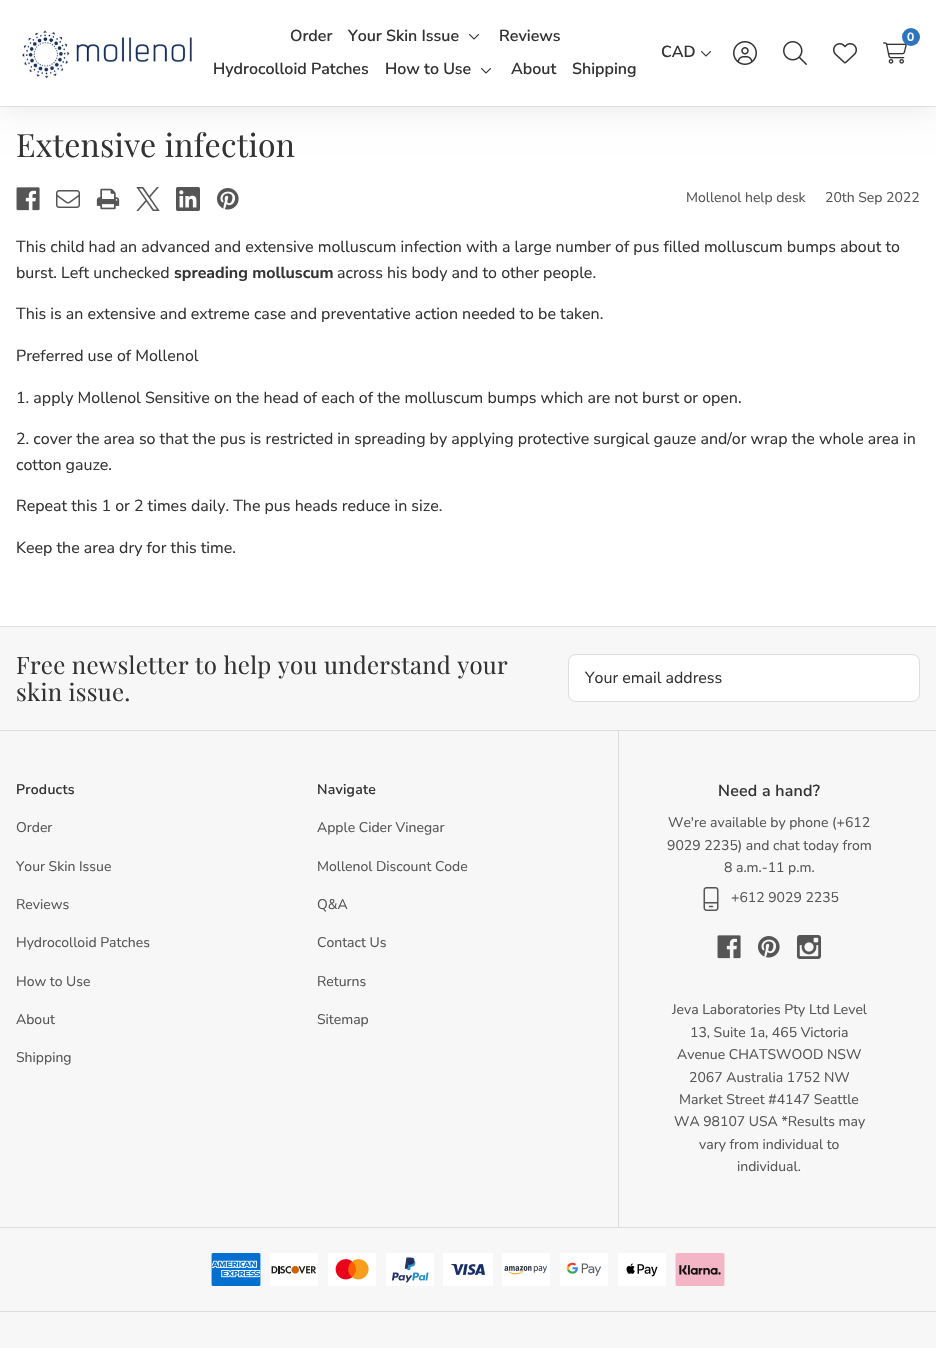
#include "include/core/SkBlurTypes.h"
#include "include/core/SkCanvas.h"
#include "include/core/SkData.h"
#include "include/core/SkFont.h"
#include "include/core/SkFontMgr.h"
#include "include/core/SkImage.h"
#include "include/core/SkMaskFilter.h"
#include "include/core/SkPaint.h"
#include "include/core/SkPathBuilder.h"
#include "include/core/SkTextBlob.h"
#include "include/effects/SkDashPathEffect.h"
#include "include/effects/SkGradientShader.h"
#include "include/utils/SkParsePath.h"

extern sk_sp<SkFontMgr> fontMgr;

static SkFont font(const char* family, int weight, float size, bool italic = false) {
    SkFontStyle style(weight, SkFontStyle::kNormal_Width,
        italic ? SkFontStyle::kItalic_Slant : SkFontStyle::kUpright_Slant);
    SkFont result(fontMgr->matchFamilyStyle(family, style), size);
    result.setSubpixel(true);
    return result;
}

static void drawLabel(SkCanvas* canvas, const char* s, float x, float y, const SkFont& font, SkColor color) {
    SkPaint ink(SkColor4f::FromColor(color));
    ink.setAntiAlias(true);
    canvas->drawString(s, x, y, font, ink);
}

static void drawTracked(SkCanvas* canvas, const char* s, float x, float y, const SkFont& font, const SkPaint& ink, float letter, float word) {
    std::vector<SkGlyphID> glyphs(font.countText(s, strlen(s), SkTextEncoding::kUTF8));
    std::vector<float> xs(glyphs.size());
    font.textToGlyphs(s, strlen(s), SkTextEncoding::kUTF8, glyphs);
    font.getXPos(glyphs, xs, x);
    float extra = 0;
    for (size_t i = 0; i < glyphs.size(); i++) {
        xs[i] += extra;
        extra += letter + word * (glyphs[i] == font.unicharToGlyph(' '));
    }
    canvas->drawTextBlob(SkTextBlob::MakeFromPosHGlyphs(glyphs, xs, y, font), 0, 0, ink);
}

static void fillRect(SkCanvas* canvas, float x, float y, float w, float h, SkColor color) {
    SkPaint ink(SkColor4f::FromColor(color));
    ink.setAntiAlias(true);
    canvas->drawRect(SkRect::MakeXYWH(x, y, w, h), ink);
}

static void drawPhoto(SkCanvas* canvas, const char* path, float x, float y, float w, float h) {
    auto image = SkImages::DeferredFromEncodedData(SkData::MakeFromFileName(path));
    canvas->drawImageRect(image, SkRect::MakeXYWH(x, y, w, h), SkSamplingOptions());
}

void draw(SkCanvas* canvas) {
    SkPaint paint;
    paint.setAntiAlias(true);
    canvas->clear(0xFFFFFFFF);
    paint.setColor(0x1A000000);
    paint.setMaskFilter(SkMaskFilter::MakeBlur(kNormal_SkBlurStyle, 16));
    canvas->drawRect(SkRect::MakeXYWH(0, 0, 936, 107), paint);
    paint.setMaskFilter(nullptr);
    fillRect(canvas, 0, 0, 936, 106, 0xFFFFFFFF);
    fillRect(canvas, 0, 106, 936, 1, 0xFFDDDDDD);
    drawPhoto(canvas, "assets/img1.png", 22, 30, 170, 49);
    SkFont font1 = font("Nunito Sans", 600, 16);
    drawLabel(canvas, "Order", 290, 41, font1, 0xFF333333);
    drawLabel(canvas, "Your Skin Issue", 348, 41, font1, 0xFF333333);
    drawPhoto(canvas, "assets/img2.png", 469, 34, 10, 6);
    drawLabel(canvas, "Reviews", 499, 41, font1, 0xFF333333);
    drawLabel(canvas, "Hydrocolloid Patches", 213, 74, font1, 0xFF333333);
    drawLabel(canvas, "How to Use", 385, 74, font1, 0xFF333333);
    drawPhoto(canvas, "assets/img2.png", 481, 68, 10, 6);
    drawLabel(canvas, "About", 511, 74, font1, 0xFF333333);
    drawLabel(canvas, "Shipping", 572, 74, font1, 0xFF333333);
    drawPhoto(canvas, "assets/img3.png", 883, 42, 24, 22);
    paint.setColor(0xFF2D73BD);
    canvas->drawCircle(911, 37, 9, paint);
    SkFont font2 = font("Nunito Sans", 700, 12);
    drawLabel(canvas, "0", 907, 41, font2, 0xFFFFFFFF);
    drawPhoto(canvas, "assets/img4.png", 783, 41, 24, 24);
    drawPhoto(canvas, "assets/img5.png", 833, 43, 24, 21);
    drawLabel(canvas, "CAD", 661, 57, font1, 0xFF333333);
    drawPhoto(canvas, "assets/img2.png", 701, 51, 10, 6);
    drawPhoto(canvas, "assets/img6.png", 733, 41, 24, 24);
    SkFont font3 = font("Playfair Display", 400, 32);
    paint.setColor(0xFF333333);
    drawTracked(canvas, "Extensive infection", 16, 157, font3, paint, 0.25f, 0);
    drawPhoto(canvas, "assets/img7.png", 16, 187, 24, 24);
    drawPhoto(canvas, "assets/img8.png", 56, 190, 24, 18);
    drawPhoto(canvas, "assets/img9.png", 96, 188, 24, 22);
    drawPhoto(canvas, "assets/img10.png", 136, 187, 24, 24);
    drawPhoto(canvas, "assets/img11.png", 176, 187, 24, 24);
    drawPhoto(canvas, "assets/img12.png", 217, 188, 22, 22);
    SkFont font4 = font("Nunito Sans", 400, 14);
    drawLabel(canvas, "Mollenol help desk", 686, 202, font4, 0xFF555555);
    drawLabel(canvas, "20th Sep 2022", 825, 202, font4, 0xFF555555);
    SkFont font5 = font("Nunito Sans", 400, 16);
    drawLabel(canvas, "This child had an advanced and extensive molluscum infection with a large number of pus filled molluscum bumps about to", 16, 252, font5, 0xFF333333);
    drawLabel(canvas, "burst. Left unchecked", 16, 278, font5, 0xFF333333);
    SkFont font6 = font("Nunito Sans", 700, 16);
    drawLabel(canvas, "spreading molluscum", 174, 278, font6, 0xFF333333);
    drawLabel(canvas, "across his body and to other people.", 337, 278, font5, 0xFF333333);
    drawLabel(canvas, "This is an extensive and extreme case and preventative action needed to be taken.", 16, 319, font5, 0xFF333333);
    drawLabel(canvas, "Preferred use of Mollenol", 16, 361, font5, 0xFF333333);
    drawLabel(canvas, "1. apply Mollenol Sensitive on the head of each of the molluscum bumps which are not burst or open.", 16, 403, font5, 0xFF333333);
    drawLabel(canvas, "2. cover the area so that the pus is restricted in spreading by applying protective surgical gauze and/or wrap the whole area in", 16, 444, font5, 0xFF333333);
    drawLabel(canvas, "cotton gauze.", 16, 470, font5, 0xFF333333);
    drawLabel(canvas, "Repeat this 1 or 2 times daily. The pus heads reduce in size.", 16, 511, font5, 0xFF333333);
    drawLabel(canvas, "Keep the area dry for this time.", 16, 553, font5, 0xFF333333);
    fillRect(canvas, 0, 627, 936, 103, 0xFFF7F7F7);
    fillRect(canvas, 0, 626, 936, 1, 0xFFDDDDDD);
    SkFont font7 = font("Playfair Display", 400, 24);
    drawTracked(canvas, "Free newsletter to help you understand your", 16, 674, font7, paint, 0.25f, 0);
    drawTracked(canvas, "skin issue.", 16, 701, font7, paint, 0.25f, 0);
    paint.setColor(0xFFFFFFFF);
    canvas->drawRoundRect(SkRect::MakeXYWH(568.5f, 654.5f, 351, 47), 7.5f, 7.5f, paint);
    paint.setStroke(true);
    paint.setStrokeWidth(1);
    paint.setColor(0xFFDDDDDD);
    canvas->drawRoundRect(SkRect::MakeXYWH(568.5f, 654.5f, 351, 47), 7.5f, 7.5f, paint);
    drawLabel(canvas, "Your email address", 585, 683, font5, 0xFF333333);
    fillRect(canvas, 0, 731, 936, 617, 0xFFF7F7F7);
    fillRect(canvas, 0, 730, 936, 1, 0xFFDDDDDD);
    fillRect(canvas, 618, 731, 1, 496, 0xFFDDDDDD);
    SkFont font8 = font("Nunito Sans", 600, 14);
    paint.setStroke(false);
    paint.setColor(0xFF333333);
    drawTracked(canvas, "Products", 16, 794, font8, paint, 0.25f, 0);
    drawLabel(canvas, "Order", 16, 832, font4, 0xFF555555);
    drawLabel(canvas, "Your Skin Issue", 16, 871, font4, 0xFF555555);
    drawLabel(canvas, "Reviews", 16, 909, font4, 0xFF555555);
    drawLabel(canvas, "Hydrocolloid Patches", 16, 947, font4, 0xFF555555);
    drawLabel(canvas, "How to Use", 16, 986, font4, 0xFF555555);
    drawLabel(canvas, "About", 16, 1024, font4, 0xFF555555);
    drawLabel(canvas, "Shipping", 16, 1062, font4, 0xFF555555);
    drawTracked(canvas, "Navigate", 317, 794, font8, paint, 0.25f, 0);
    drawLabel(canvas, "Apple Cider Vinegar", 317, 832, font4, 0xFF555555);
    drawLabel(canvas, "Mollenol Discount Code", 317, 871, font4, 0xFF555555);
    drawLabel(canvas, "Q&A", 317, 909, font4, 0xFF555555);
    drawLabel(canvas, "Contact Us", 317, 947, font4, 0xFF555555);
    drawLabel(canvas, "Returns", 317, 986, font4, 0xFF555555);
    drawLabel(canvas, "Sitemap", 317, 1024, font4, 0xFF555555);
    drawTracked(canvas, "Need a hand?", 718, 796, font1, paint, 0.25f, 0);
    drawLabel(canvas, "We're available by phone (+612", 668, 827, font4, 0xFF555555);
    drawLabel(canvas, "9029 2235) and chat today from", 667, 850, font4, 0xFF555555);
    drawLabel(canvas, "8 a.m.-11 p.m.", 724, 872, font4, 0xFF555555);
    drawPhoto(canvas, "assets/img13.png", 703, 887, 16, 24);
    drawLabel(canvas, "+612 9029 2235", 731, 902, font4, 0xFF555555);
    drawPhoto(canvas, "assets/img14.png", 717, 935, 24, 24);
    drawPhoto(canvas, "assets/img15.png", 758, 936, 22, 22);
    drawPhoto(canvas, "assets/img16.png", 797, 935, 24, 24);
    drawLabel(canvas, "Jeva Laboratories Pty Ltd Level", 672, 1014, font4, 0xFF555555);
    drawLabel(canvas, "13, Suite 1a, 465 Victoria", 690, 1037, font4, 0xFF555555);
    drawLabel(canvas, "Avenue CHATSWOOD NSW", 677, 1059, font4, 0xFF555555);
    drawLabel(canvas, "2067 Australia 1752 NW", 689, 1082, font4, 0xFF555555);
    drawLabel(canvas, "Market Street #4147 Seattle", 679, 1104, font4, 0xFF555555);
    drawLabel(canvas, "WA 98107 USA *Results may", 674, 1126, font4, 0xFF555555);
    drawLabel(canvas, "vary from individual to", 699, 1149, font4, 0xFF555555);
    drawLabel(canvas, "individual.", 737, 1171, font4, 0xFF555555);
    fillRect(canvas, 0, 1227, 936, 1, 0xFFDDDDDD);
    drawPhoto(canvas, "assets/img17.png", 211, 1253, 50, 33);
    drawPhoto(canvas, "assets/img18.png", 270, 1253, 48, 33);
    drawPhoto(canvas, "assets/img19.png", 328, 1253, 48, 33);
    drawPhoto(canvas, "assets/img20.png", 386, 1253, 48, 33);
    drawPhoto(canvas, "assets/img21.png", 443, 1253, 50, 33);
    drawPhoto(canvas, "assets/img22.png", 502, 1253, 48, 33);
    drawPhoto(canvas, "assets/img23.png", 560, 1253, 48, 33);
    drawPhoto(canvas, "assets/img24.png", 618, 1253, 48, 33);
    drawPhoto(canvas, "assets/img25.png", 675, 1253, 50, 33);
    fillRect(canvas, 0, 1311, 936, 1, 0xFFDDDDDD);
}
